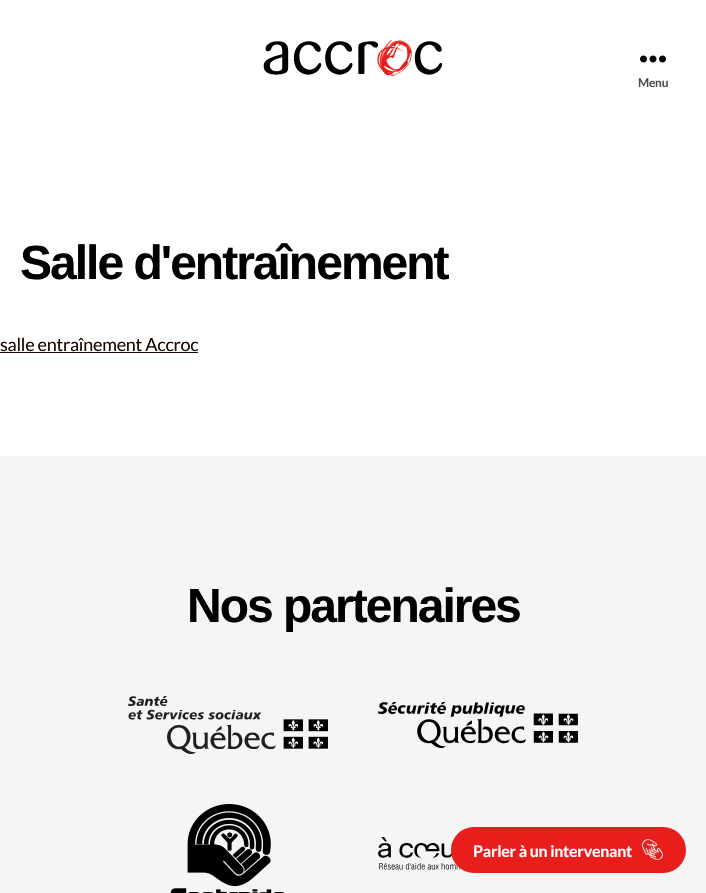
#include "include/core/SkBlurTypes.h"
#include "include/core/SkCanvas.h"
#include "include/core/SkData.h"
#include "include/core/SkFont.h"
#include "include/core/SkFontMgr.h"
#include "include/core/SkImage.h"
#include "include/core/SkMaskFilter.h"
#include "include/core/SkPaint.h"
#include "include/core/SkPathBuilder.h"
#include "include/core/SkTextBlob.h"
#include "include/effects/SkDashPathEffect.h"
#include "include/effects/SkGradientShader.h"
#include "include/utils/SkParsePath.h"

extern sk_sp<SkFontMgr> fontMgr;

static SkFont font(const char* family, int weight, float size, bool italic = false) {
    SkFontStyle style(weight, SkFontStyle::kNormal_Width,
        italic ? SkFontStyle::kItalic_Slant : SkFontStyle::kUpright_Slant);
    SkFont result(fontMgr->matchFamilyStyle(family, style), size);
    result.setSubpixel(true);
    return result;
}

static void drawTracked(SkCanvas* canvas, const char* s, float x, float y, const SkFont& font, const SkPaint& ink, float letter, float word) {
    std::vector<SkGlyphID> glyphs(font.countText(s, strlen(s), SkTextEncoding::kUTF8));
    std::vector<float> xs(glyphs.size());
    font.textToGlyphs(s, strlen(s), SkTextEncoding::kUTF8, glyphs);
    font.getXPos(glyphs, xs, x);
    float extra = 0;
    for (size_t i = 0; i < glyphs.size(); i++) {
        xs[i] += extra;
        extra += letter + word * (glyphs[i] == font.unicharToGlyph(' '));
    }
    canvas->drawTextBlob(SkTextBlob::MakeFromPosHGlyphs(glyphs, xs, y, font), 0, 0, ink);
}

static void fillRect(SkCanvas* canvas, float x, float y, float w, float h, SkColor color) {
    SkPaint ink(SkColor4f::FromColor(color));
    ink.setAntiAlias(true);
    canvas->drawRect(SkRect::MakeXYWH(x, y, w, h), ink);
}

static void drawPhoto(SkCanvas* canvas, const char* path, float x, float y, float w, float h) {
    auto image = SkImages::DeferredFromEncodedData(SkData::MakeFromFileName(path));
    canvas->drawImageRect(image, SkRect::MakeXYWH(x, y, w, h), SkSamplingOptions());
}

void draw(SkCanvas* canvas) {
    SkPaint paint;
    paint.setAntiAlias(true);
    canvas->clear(0xFFFFFFFF);
    drawPhoto(canvas, "assets/img1.png", 263, 39, 180, 37);
    drawPhoto(canvas, "assets/img2.png", 640, 55, 26, 8);
    SkFont font1 = font("Lato", 700, 12);
    paint.setColor(0xFF4D4E4E);
    drawTracked(canvas, "Menu", 638, 87, font1, paint, -0.25f, 0);
    SkFont font2 = font("Liberation Sans", 700, 48);
    paint.setColor(0xFF000000);
    drawTracked(canvas, "Salle d'entraînement", 20, 279, font2, paint, -2, 0);
    SkFont font3 = font("Lato", 400, 18);
    paint.setColor(0xFF190800);
    drawTracked(canvas, "salle entraînement Accroc", 0, 351, font3, paint, -0.25f, 0);
    fillRect(canvas, 0, 352, 198, 1, 0xFF190800);
    fillRect(canvas, 0, 456, 706, 437, 0xFFF5F5F5);
    paint.setColor(0xFF000000);
    drawTracked(canvas, "Nos partenaires", 187, 622, font2, paint, -2, 0);
    drawPhoto(canvas, "assets/img3.png", 128, 696, 200, 58);
    drawPhoto(canvas, "assets/img4.png", 378, 702, 200, 46);
    drawPhoto(canvas, "assets/img5.png", 170, 804, 115, 89);
    drawPhoto(canvas, "assets/img6.png", 378, 837, 85, 33);
    paint.setColor(0xFFE71E1C);
    canvas->drawRoundRect(SkRect::MakeXYWH(452, 828, 233, 44), 22, 22, paint);
    paint.setStroke(true);
    paint.setStrokeWidth(2);
    canvas->drawRoundRect(SkRect::MakeXYWH(452, 828, 233, 44), 22, 22, paint);
    SkFont font4 = font("Lato", 700, 16);
    paint.setStroke(false);
    paint.setColor(0xFFFFFFFF);
    drawTracked(canvas, "Parler à un intervenant", 473, 857, font4, paint, -0.25f, 0);
    drawPhoto(canvas, "assets/img7.png", 642, 839, 21, 21);
}
